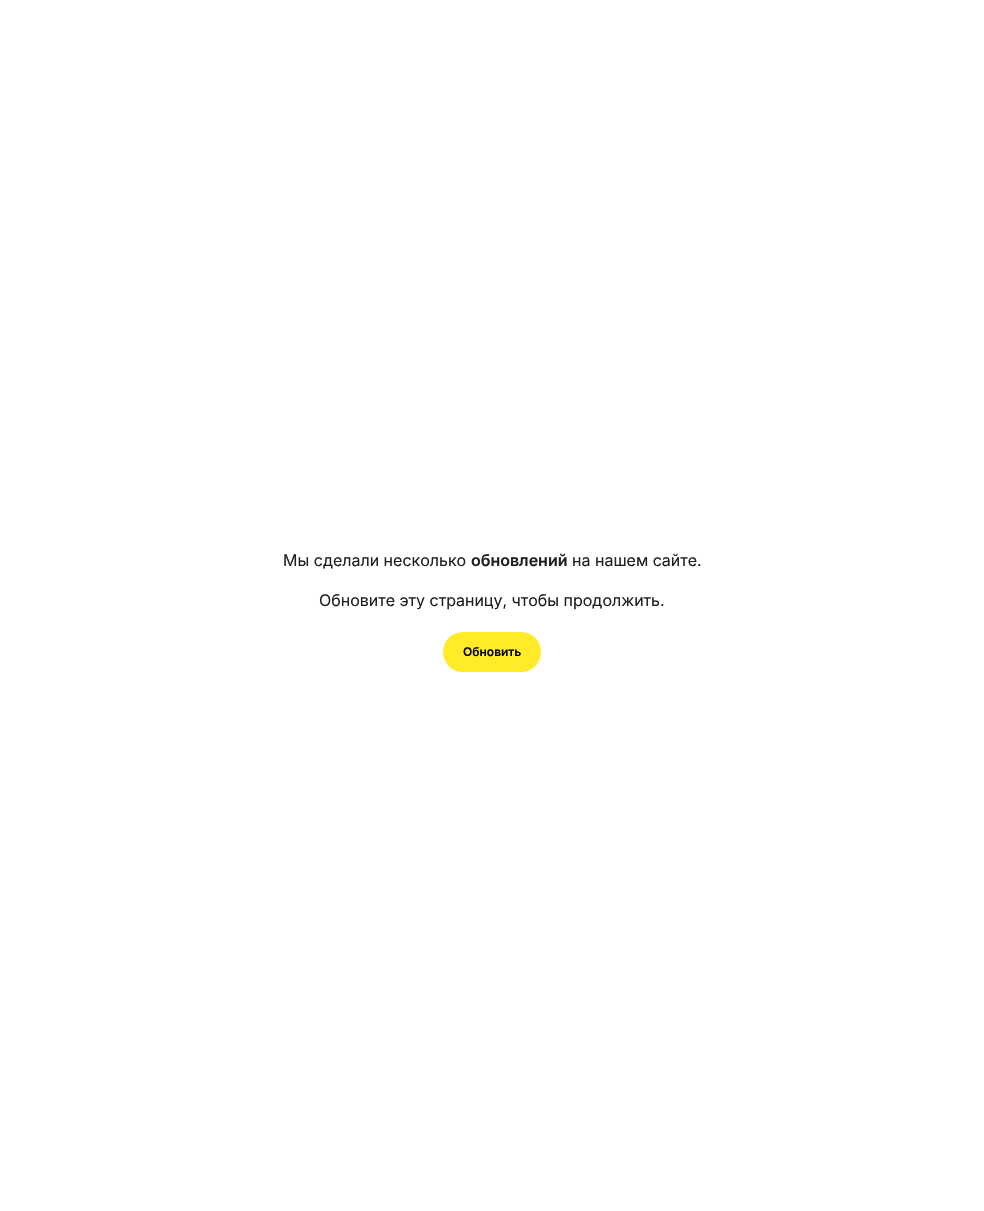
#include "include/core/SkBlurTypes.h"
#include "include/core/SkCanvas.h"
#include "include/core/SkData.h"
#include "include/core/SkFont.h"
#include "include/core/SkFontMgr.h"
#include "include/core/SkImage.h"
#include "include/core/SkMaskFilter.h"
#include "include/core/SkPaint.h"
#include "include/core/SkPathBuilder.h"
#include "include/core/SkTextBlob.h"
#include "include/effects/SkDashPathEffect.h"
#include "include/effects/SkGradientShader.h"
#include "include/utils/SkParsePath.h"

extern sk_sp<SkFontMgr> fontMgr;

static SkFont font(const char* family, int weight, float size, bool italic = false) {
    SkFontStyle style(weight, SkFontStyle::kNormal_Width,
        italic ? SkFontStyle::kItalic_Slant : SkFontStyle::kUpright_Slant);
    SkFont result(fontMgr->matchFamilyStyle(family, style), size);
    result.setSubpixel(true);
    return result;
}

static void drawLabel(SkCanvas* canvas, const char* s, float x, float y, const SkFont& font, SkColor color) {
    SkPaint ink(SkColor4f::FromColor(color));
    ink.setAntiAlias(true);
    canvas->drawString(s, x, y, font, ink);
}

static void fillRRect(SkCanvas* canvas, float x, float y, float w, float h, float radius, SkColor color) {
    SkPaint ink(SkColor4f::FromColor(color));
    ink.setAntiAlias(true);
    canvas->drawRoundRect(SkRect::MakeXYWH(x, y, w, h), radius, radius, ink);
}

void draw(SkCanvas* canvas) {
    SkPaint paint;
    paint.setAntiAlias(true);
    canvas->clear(0xFFFFFFFF);
    SkFont font1 = font("Inter", 400, 16);
    drawLabel(canvas, "Мы сделали несколько", 283, 566, font1, 0xFF1F1F1F);
    SkFont font2 = font("Inter", 600, 16);
    drawLabel(canvas, "обновлений", 471, 566, font2, 0xFF1F1F1F);
    drawLabel(canvas, "на нашем сайте.", 572, 566, font1, 0xFF1F1F1F);
    drawLabel(canvas, "Обновите эту страницу, чтобы продолжить.", 319, 606, font1, 0xFF1F1F1F);
    fillRRect(canvas, 443, 632, 98, 40, 20, 0xFFFFEB28);
    SkFont font3 = font("Inter", 600, 12);
    drawLabel(canvas, "Обновить", 463, 656, font3, 0xFF000000);
}
